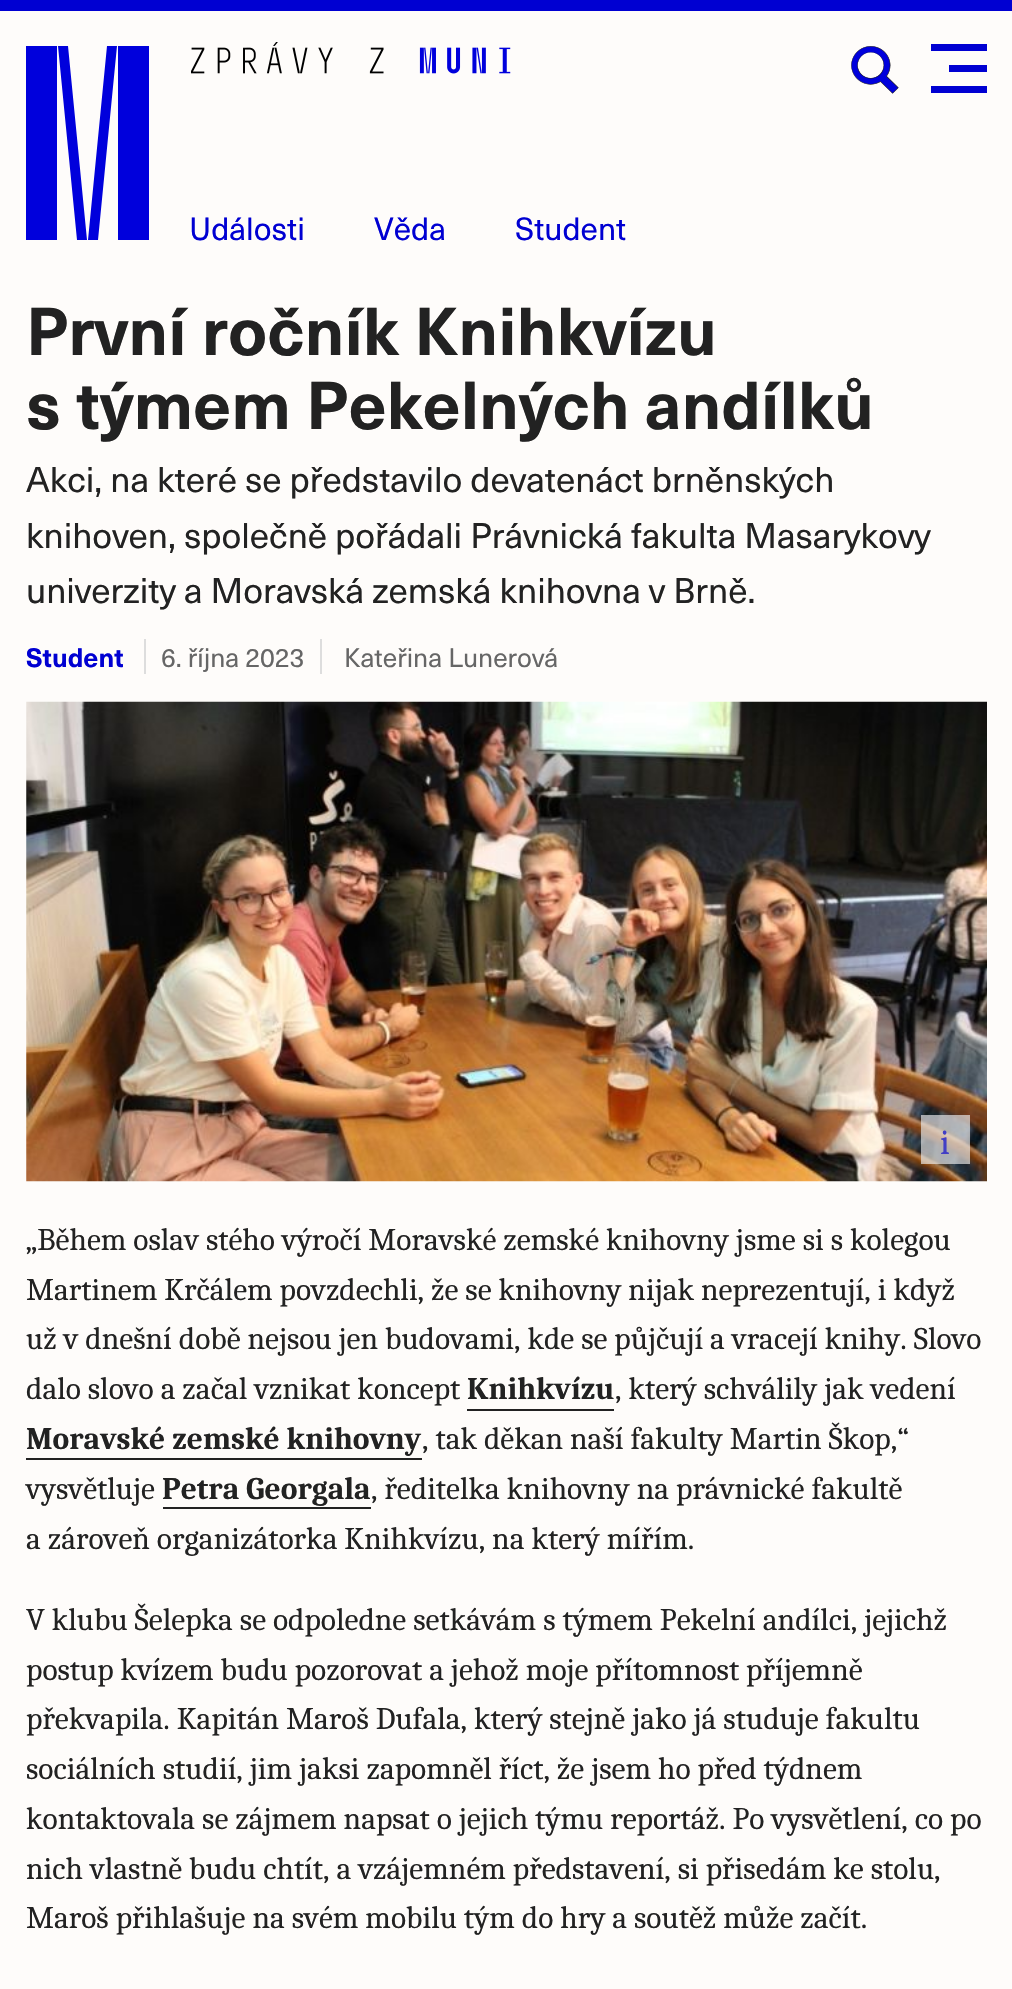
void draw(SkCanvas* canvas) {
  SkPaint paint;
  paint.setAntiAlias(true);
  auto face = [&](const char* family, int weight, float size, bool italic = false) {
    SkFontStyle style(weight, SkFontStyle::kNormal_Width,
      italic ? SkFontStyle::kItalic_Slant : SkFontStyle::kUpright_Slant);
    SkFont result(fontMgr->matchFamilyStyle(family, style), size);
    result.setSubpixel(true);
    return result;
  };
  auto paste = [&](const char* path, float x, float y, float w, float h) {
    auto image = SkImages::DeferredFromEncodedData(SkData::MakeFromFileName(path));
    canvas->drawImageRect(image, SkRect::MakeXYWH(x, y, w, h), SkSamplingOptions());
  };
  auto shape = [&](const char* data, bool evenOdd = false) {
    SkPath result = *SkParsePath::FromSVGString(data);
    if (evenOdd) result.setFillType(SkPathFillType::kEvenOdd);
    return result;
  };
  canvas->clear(0xfffefcfa);
  paint.setColor(0xff0000d2);
  canvas->drawRect(SkRect::MakeXYWH(0, 0, 1012, 11), paint);
  paint.setColor(0xff0000dc);
  canvas->drawPath(shape("M26 46H57V240H26ZM58 46H68L87 240H77ZM107 46H117L98 240H88ZM118 46H149V240H118Z"), paint);
  paste("img/1.png", 191, 42, 320, 32);
  paste("img/2.png", 851, 46, 48, 48);
  {
    const struct { float x, y, w, h; SkColor color; } items[] = {
      {931, 44, 56, 7, 0xff0000d2},
      {949, 65, 38, 7, 0xff0000d2},
      {931, 86, 56, 7, 0xff0000d2},
      {320, 639, 2, 35, 0xffdddddd},
      {144, 639, 2, 35, 0xffdddddd},
    };
    for (auto [x, y, w, h, color] : items) {
      paint.setColor(color);
      canvas->drawRect(SkRect::MakeXYWH(x, y, w, h), paint);
    }
  }
  paste("img/3.png", 26, 701, 961, 481);
  {
    const struct { float x, y, w, h; SkColor color; } items[] = {
      {921, 1115, 49, 49, 0xa6eeeeee},
      {467, 1409, 147, 2, 0xff222222},
      {26, 1458, 396, 2, 0xff222222},
      {163, 1507, 208, 2, 0xff222222},
    };
    for (auto [x, y, w, h, color] : items) {
      paint.setColor(color);
      canvas->drawRect(SkRect::MakeXYWH(x, y, w, h), paint);
    }
  }
  auto f0 = face("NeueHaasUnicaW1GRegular", 400, 31.5f);
  paint.setColor(0xff0000d2);
  {
    const struct { const char* s; float x, y; } items[] = {
      {"Události", 189, 240},
      {"Věda", 374, 240},
      {"Student", 515, 240},
    };
    for (auto [s, x, y] : items) {
      canvas->drawString(s, x, y, f0, paint);
    }
  }
  auto f1 = face("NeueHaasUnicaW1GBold", 700, 66.5f);
  paint.setColor(0xff222222);
  canvas->drawString("První ročník Knihkvízu", 26, 355, f1, paint);
  canvas->drawString("s týmem Pekelných andílků", 26, 429, f1, paint);
  auto f2 = face("NeueHaasUnicaW1GRegular", 400, 35);
  {
    const struct { const char* s; float x, y; } items[] = {
      {"Akci, na které se představilo devatenáct brněnských", 26, 492},
      {"knihoven, společně pořádali Právnická fakulta Masarykovy", 26, 548},
      {"univerzity a Moravská zemská knihovna v Brně.", 26, 603},
    };
    for (auto [s, x, y] : items) {
      canvas->drawString(s, x, y, f2, paint);
    }
  }
  auto f3 = face("NeueHaasUnicaW1GBold", 700, 26.25f);
  paint.setColor(0xff0000d2);
  canvas->drawString("Student", 26, 667, f3, paint);
  auto f4 = face("NeueHaasUnicaW1GRegular", 400, 26.25f);
  paint.setColor(0xff666666);
  canvas->drawString("6. října 2023", 161, 667, f4, paint);
  canvas->drawString("Kateřina Lunerová", 344, 667, f4, paint);
  auto f5 = face("Caladea", 400, 35);
  paint.setColor(0xff423fc5);
  canvas->drawString("i", 940, 1154, f5, paint);
  auto f6 = face("Caladea", 400, 31.5f);
  paint.setColor(0xff222222);
  {
    const struct { const char* s; float x, y; } items[] = {
      {"„Během oslav stého výročí Moravské zemské knihovny jsme si s kolegou", 26, 1250},
      {"Martinem Krčálem povzdechli, že se knihovny nijak neprezentují, i když", 26, 1300},
      {"už v dnešní době nejsou jen budovami, kde se půjčují a vracejí knihy. Slovo", 26, 1349},
      {"dalo slovo a začal vznikat koncept", 26, 1399},
    };
    for (auto [s, x, y] : items) {
      canvas->drawString(s, x, y, f6, paint);
    }
  }
  auto f7 = face("Caladea", 700, 31.5f);
  canvas->drawString("Knihkvízu", 467, 1399, f7, paint);
  canvas->drawString(", který schválily jak vedení", 615, 1399, f6, paint);
  canvas->drawString("Moravské zemské knihovny", 26, 1449, f7, paint);
  canvas->drawString(", tak děkan naší fakulty Martin Škop,“", 422, 1449, f6, paint);
  canvas->drawString("vysvětluje", 26, 1499, f6, paint);
  canvas->drawString("Petra Georgala", 162, 1499, f7, paint);
  {
    const struct { const char* s; float x, y; } items[] = {
      {", ředitelka knihovny na právnické fakultě", 371, 1499},
      {"a zároveň organizátorka Knihkvízu, na který mířím.", 26, 1549},
      {"V klubu Šelepka se odpoledne setkávám s týmem Pekelní andílci, jejichž", 26, 1630},
      {"postup kvízem budu pozorovat a jehož moje přítomnost příjemně", 26, 1680},
      {"překvapila. Kapitán Maroš Dufala, který stejně jako já studuje fakultu", 26, 1729},
      {"sociálních studií, jim jaksi zapomněl říct, že jsem ho před týdnem", 26, 1779},
      {"kontaktovala se zájmem napsat o jejich týmu reportáž. Po vysvětlení, co po", 26, 1829},
      {"nich vlastně budu chtít, a vzájemném představení, si přisedám ke stolu,", 26, 1879},
      {"Maroš přihlašuje na svém mobilu tým do hry a soutěž může začít.", 26, 1928},
    };
    for (auto [s, x, y] : items) {
      canvas->drawString(s, x, y, f6, paint);
    }
  }
}
